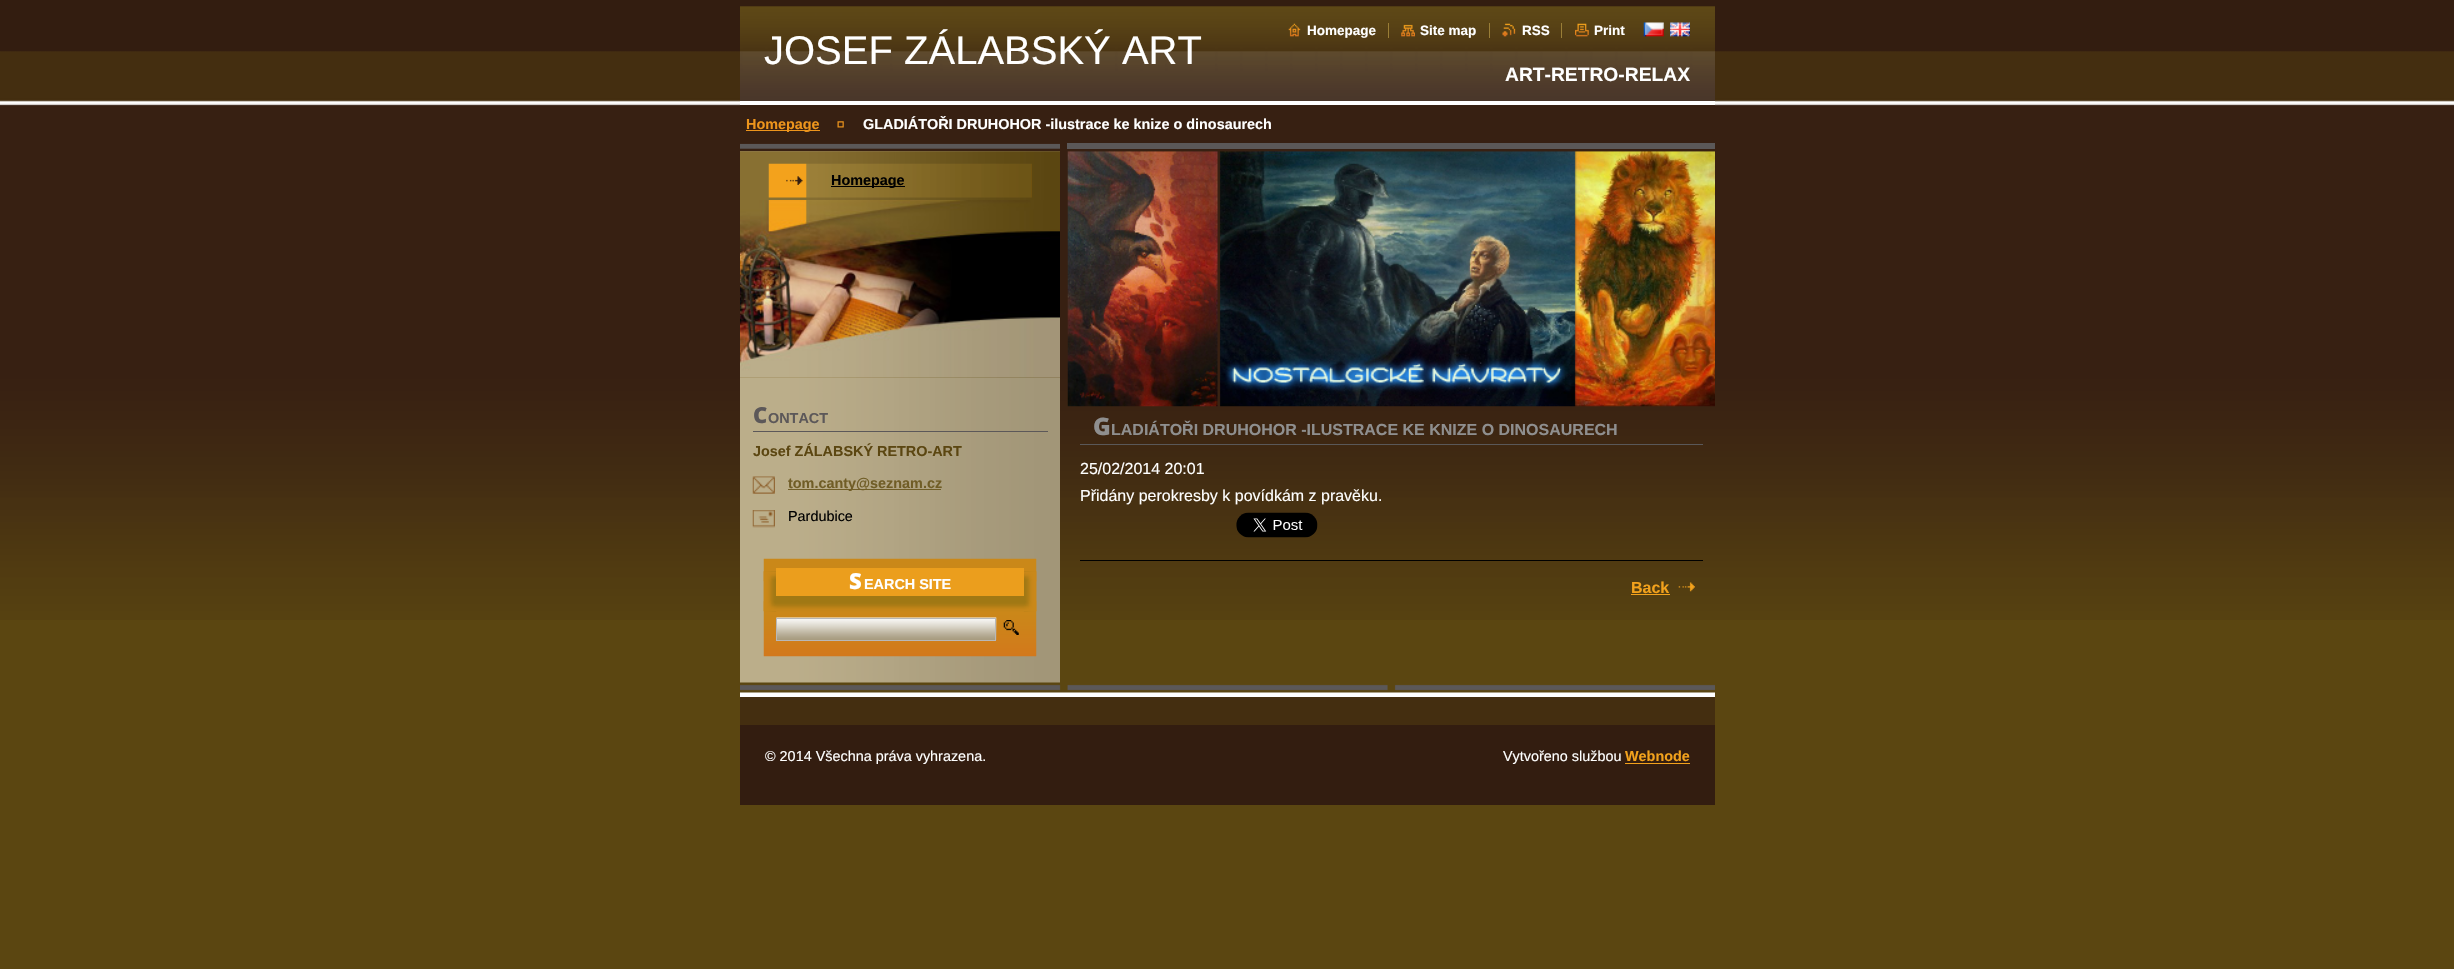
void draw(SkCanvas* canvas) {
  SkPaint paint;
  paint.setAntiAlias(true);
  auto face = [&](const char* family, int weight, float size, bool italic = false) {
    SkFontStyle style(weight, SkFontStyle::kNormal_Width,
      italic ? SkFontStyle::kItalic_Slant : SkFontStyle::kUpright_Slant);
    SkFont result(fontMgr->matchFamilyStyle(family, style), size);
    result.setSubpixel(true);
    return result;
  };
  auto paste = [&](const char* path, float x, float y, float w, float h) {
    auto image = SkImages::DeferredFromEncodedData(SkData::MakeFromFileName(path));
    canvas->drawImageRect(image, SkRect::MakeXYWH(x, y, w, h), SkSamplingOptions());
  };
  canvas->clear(0xff5b4611);
  paste("img/1.png", 0, 0, 2454, 620);
  paste("img/2.png", 740, 151, 320, 532);
  paste("img/3.png", 740, 0, 975, 101);
  paint.setColor(0xffffffff);
  canvas->drawRect(SkRect::MakeXYWH(740, 101, 975, 4), paint);
  paste("img/4.png", 1288, 23, 13, 14);
  paste("img/5.png", 1401, 24, 14, 13);
  paint.setColor(0xff9a7e37);
  canvas->drawRect(SkRect::MakeXYWH(1388, 23, 1, 15), paint);
  paste("img/6.png", 1502, 23, 14, 14);
  canvas->drawRect(SkRect::MakeXYWH(1489, 23, 1, 15), paint);
  paste("img/7.png", 1575, 23, 14, 14);
  canvas->drawRect(SkRect::MakeXYWH(1561, 23, 1, 15), paint);
  paste("img/8.png", 1643, 22, 21, 15);
  paste("img/9.png", 1670, 22, 20, 15);
  paint.setColor(0xff372012);
  canvas->drawRect(SkRect::MakeXYWH(740, 105, 975, 1), paint);
  paint.setColor(0xffed951c);
  canvas->drawRect(SkRect::MakeXYWH(746, 130, 74, 1), paint);
  paste("img/10.png", 837, 121, 7, 7);
  paste("img/11.png", 740, 143, 320, 9);
  paste("img/12.png", 740, 151, 320, 227);
  paste("img/13.png", 768, 163, 264, 35);
  paste("img/14.png", 786, 176, 17, 9);
  paint.setColor(0xff000000);
  canvas->drawRect(SkRect::MakeXYWH(831, 186, 74, 1), paint);
  paste("img/15.png", 740, 200, 320, 178);
  paint.setColor(0xff5c5859);
  canvas->drawRect(SkRect::MakeXYWH(753, 431, 295, 1), paint);
  paste("img/16.png", 752, 476, 23, 18);
  paint.setColor(0xff705d26);
  canvas->drawRect(SkRect::MakeXYWH(788, 489, 153, 1), paint);
  paste("img/17.png", 752, 510, 23, 18);
  paste("img/18.png", 763, 558, 274, 99);
  paint.setColor(0xffa07814);
  canvas->drawRect(SkRect::MakeXYWH(764, 571, 272, 31), paint);
  paste("img/19.png", 763, 571, 274, 41);
  paste("img/20.png", 763, 571, 274, 11);
  paint.setColor(0xffeb9e1d);
  canvas->drawRect(SkRect::MakeXYWH(776, 568, 248, 28), paint);
  paste("img/21.png", 763, 601, 274, 11);
  paste("img/22.png", 776, 617, 221, 23);
  paint.setStroke(true);
  paint.setStrokeWidth(1);
  paint.setColor(0xffb8b8b8);
  canvas->drawRect(SkRect::MakeXYWH(776.5f, 618.5f, 219, 22), paint);
  paste("img/23.png", 1003, 620, 16, 15);
  paint.setStroke(false);
  paint.setColor(0xff5b5858);
  canvas->drawRect(SkRect::MakeXYWH(1067, 143, 648, 6), paint);
  paste("img/24.png", 1067, 151, 648, 256);
  paint.setColor(0xff5a5859);
  canvas->drawRect(SkRect::MakeXYWH(1080, 444, 623, 1), paint);
  paste("img/25.png", 1236, 512, 82, 26);
  paint.setColor(0xff000000);
  canvas->drawRect(SkRect::MakeXYWH(1080, 560, 623, 1), paint);
  paint.setColor(0xfff3a21c);
  canvas->drawRect(SkRect::MakeXYWH(1631, 594, 39, 1), paint);
  paste("img/26.png", 1678, 582, 17, 10);
  paint.setColor(0xff331d10);
  canvas->drawRect(SkRect::MakeXYWH(740, 725, 975, 80), paint);
  paste("img/27.png", 740, 682, 975, 15);
  paint.setColor(0xff442e10);
  canvas->drawRect(SkRect::MakeXYWH(740, 697, 975, 28), paint);
  paint.setColor(0xfff3a21c);
  canvas->drawRect(SkRect::MakeXYWH(1625, 763, 65, 1), paint);
  auto f0 = face("Liberation Sans", 400, 40);
  paint.setColor(0xffffffff);
  canvas->drawString("JOSEF ZÁLABSKÝ ART", 764, 64, f0, paint);
  auto f1 = face("Liberation Sans", 700, 13.5f);
  {
    const struct { const char* s; float x, y; } items[] = {
      {"Homepage", 1307, 35},
      {"Site map", 1420, 35},
      {"RSS", 1522, 35},
      {"Print", 1594, 35},
    };
    for (auto [s, x, y] : items) {
      canvas->drawString(s, x, y, f1, paint);
    }
  }
  auto f2 = face("Liberation Sans", 700, 19.25f);
  canvas->drawString("ART-RETRO-RELAX", 1505, 81, f2, paint);
  auto f3 = face("Liberation Sans", 700, 14.4f);
  paint.setColor(0xffed951c);
  canvas->drawString("Homepage", 746, 129, f3, paint);
  paint.setColor(0xffffffff);
  canvas->drawString("GLADIÁTOŘI DRUHOHOR -ilustrace ke knize o dinosaurech", 863, 129, f3, paint);
  paint.setColor(0xff000000);
  canvas->drawString("Homepage", 831, 185, f3, paint);
  auto f4 = face("Noto Sans", 900, 22);
  paint.setColor(0xff5c5859);
  canvas->drawString("C", 753, 423, f4, paint);
  canvas->drawString("ONTACT", 768, 423, f3, paint);
  paint.setColor(0xff5b4611);
  canvas->drawString("Josef ZÁLABSKÝ RETRO-ART", 753, 456, f3, paint);
  paint.setColor(0xff705d26);
  canvas->drawString("tom.canty@seznam.cz", 788, 488, f3, paint);
  auto f5 = face("Liberation Sans", 400, 14.4f);
  paint.setColor(0xff000000);
  canvas->drawString("Pardubice", 788, 521, f5, paint);
  paint.setColor(0xffffffff);
  canvas->drawString("S", 849, 589, f4, paint);
  canvas->drawString("EARCH SITE", 864, 589, f3, paint);
  auto f6 = face("Noto Sans", 900, 24);
  paint.setColor(0xff8f8f8f);
  canvas->drawString("G", 1093, 435, f6, paint);
  auto f7 = face("Liberation Sans", 700, 16);
  canvas->drawString("LADIÁTOŘI DRUHOHOR -ILUSTRACE KE KNIZE O DINOSAURECH", 1111, 435, f7, paint);
  auto f8 = face("Liberation Sans", 400, 16);
  paint.setColor(0xffffffff);
  canvas->drawString("25/02/2014 20:01", 1080, 474, f8, paint);
  canvas->drawString("Přidány perokresby k povídkám z pravěku.", 1080, 501, f8, paint);
  paint.setColor(0xfff3a21c);
  canvas->drawString("Back", 1631, 593, f7, paint);
  paint.setColor(0xffffffff);
  canvas->drawString("© 2014 Všechna práva vyhrazena.", 765, 761, f5, paint);
  canvas->drawString("Vytvořeno službou", 1503, 761, f5, paint);
  paint.setColor(0xfff3a21c);
  canvas->drawString("Webnode", 1625, 761, f3, paint);
}
